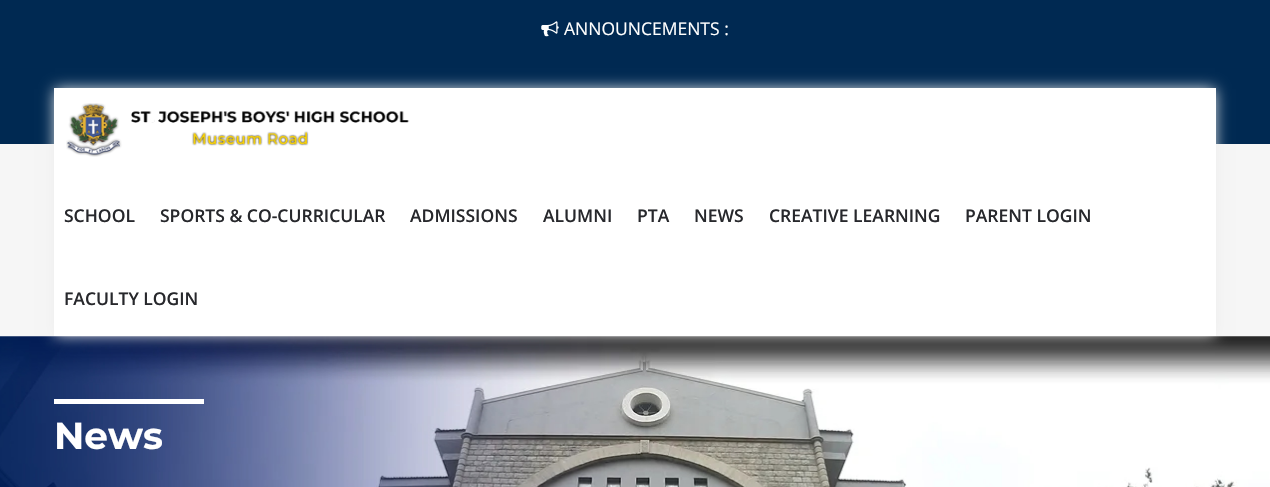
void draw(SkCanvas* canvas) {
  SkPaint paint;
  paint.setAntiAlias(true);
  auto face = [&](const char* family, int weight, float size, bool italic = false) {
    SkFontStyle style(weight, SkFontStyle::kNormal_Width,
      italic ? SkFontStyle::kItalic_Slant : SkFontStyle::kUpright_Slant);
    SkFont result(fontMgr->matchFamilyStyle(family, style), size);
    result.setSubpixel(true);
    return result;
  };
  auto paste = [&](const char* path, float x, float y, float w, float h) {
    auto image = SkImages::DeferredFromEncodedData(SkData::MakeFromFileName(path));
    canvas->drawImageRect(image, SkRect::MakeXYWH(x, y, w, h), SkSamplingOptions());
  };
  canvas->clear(0xffffffff);
  paint.setColor(0xff002952);
  canvas->drawRect(SkRect::MakeXYWH(0, 0, 1270, 144), paint);
  paste("img/1.png", 541, 21, 18, 16);
  paint.setColor(0xfff6f6f6);
  canvas->drawRect(SkRect::MakeXYWH(0, 144, 1270, 192), paint);
  paste("img/3.png", 0, 336, 1270, 151);
  paint.setColor(0xffececec);
  paint.setMaskFilter(SkMaskFilter::MakeBlur(kNormal_SkBlurStyle, 7));
  canvas->drawRect(SkRect::MakeXYWH(55, 89, 1160, 246), paint);
  paint.setMaskFilter(nullptr);
  paint.setColor(0xffffffff);
  canvas->drawRect(SkRect::MakeXYWH(54, 88, 1162, 248), paint);
  paste("img/2.png", 66, 103, 344, 54);
  canvas->drawRect(SkRect::MakeXYWH(54, 399, 150, 5), paint);
  auto f0 = face("Open Sans", 400, 17.5f);
  canvas->drawString("ANNOUNCEMENTS :", 564, 35, f0, paint);
  auto f1 = face("Open Sans", 600, 17.5f);
  paint.setColor(0xff27282c);
  {
    const struct { const char* s; float x, y; } items[] = {
      {"SCHOOL", 64, 222},
      {"SPORTS & CO-CURRICULAR", 160, 222},
      {"ADMISSIONS", 410, 222},
      {"ALUMNI", 543, 222},
      {"PTA", 637, 222},
      {"NEWS", 694, 222},
      {"CREATIVE LEARNING", 769, 222},
      {"PARENT LOGIN", 965, 222},
      {"FACULTY LOGIN", 64, 305},
    };
    for (auto [s, x, y] : items) {
      canvas->drawString(s, x, y, f1, paint);
    }
  }
  auto f2 = face("Montserrat", 700, 37.5f);
  paint.setColor(0xffffffff);
  canvas->drawString("News", 54, 449, f2, paint);
}
